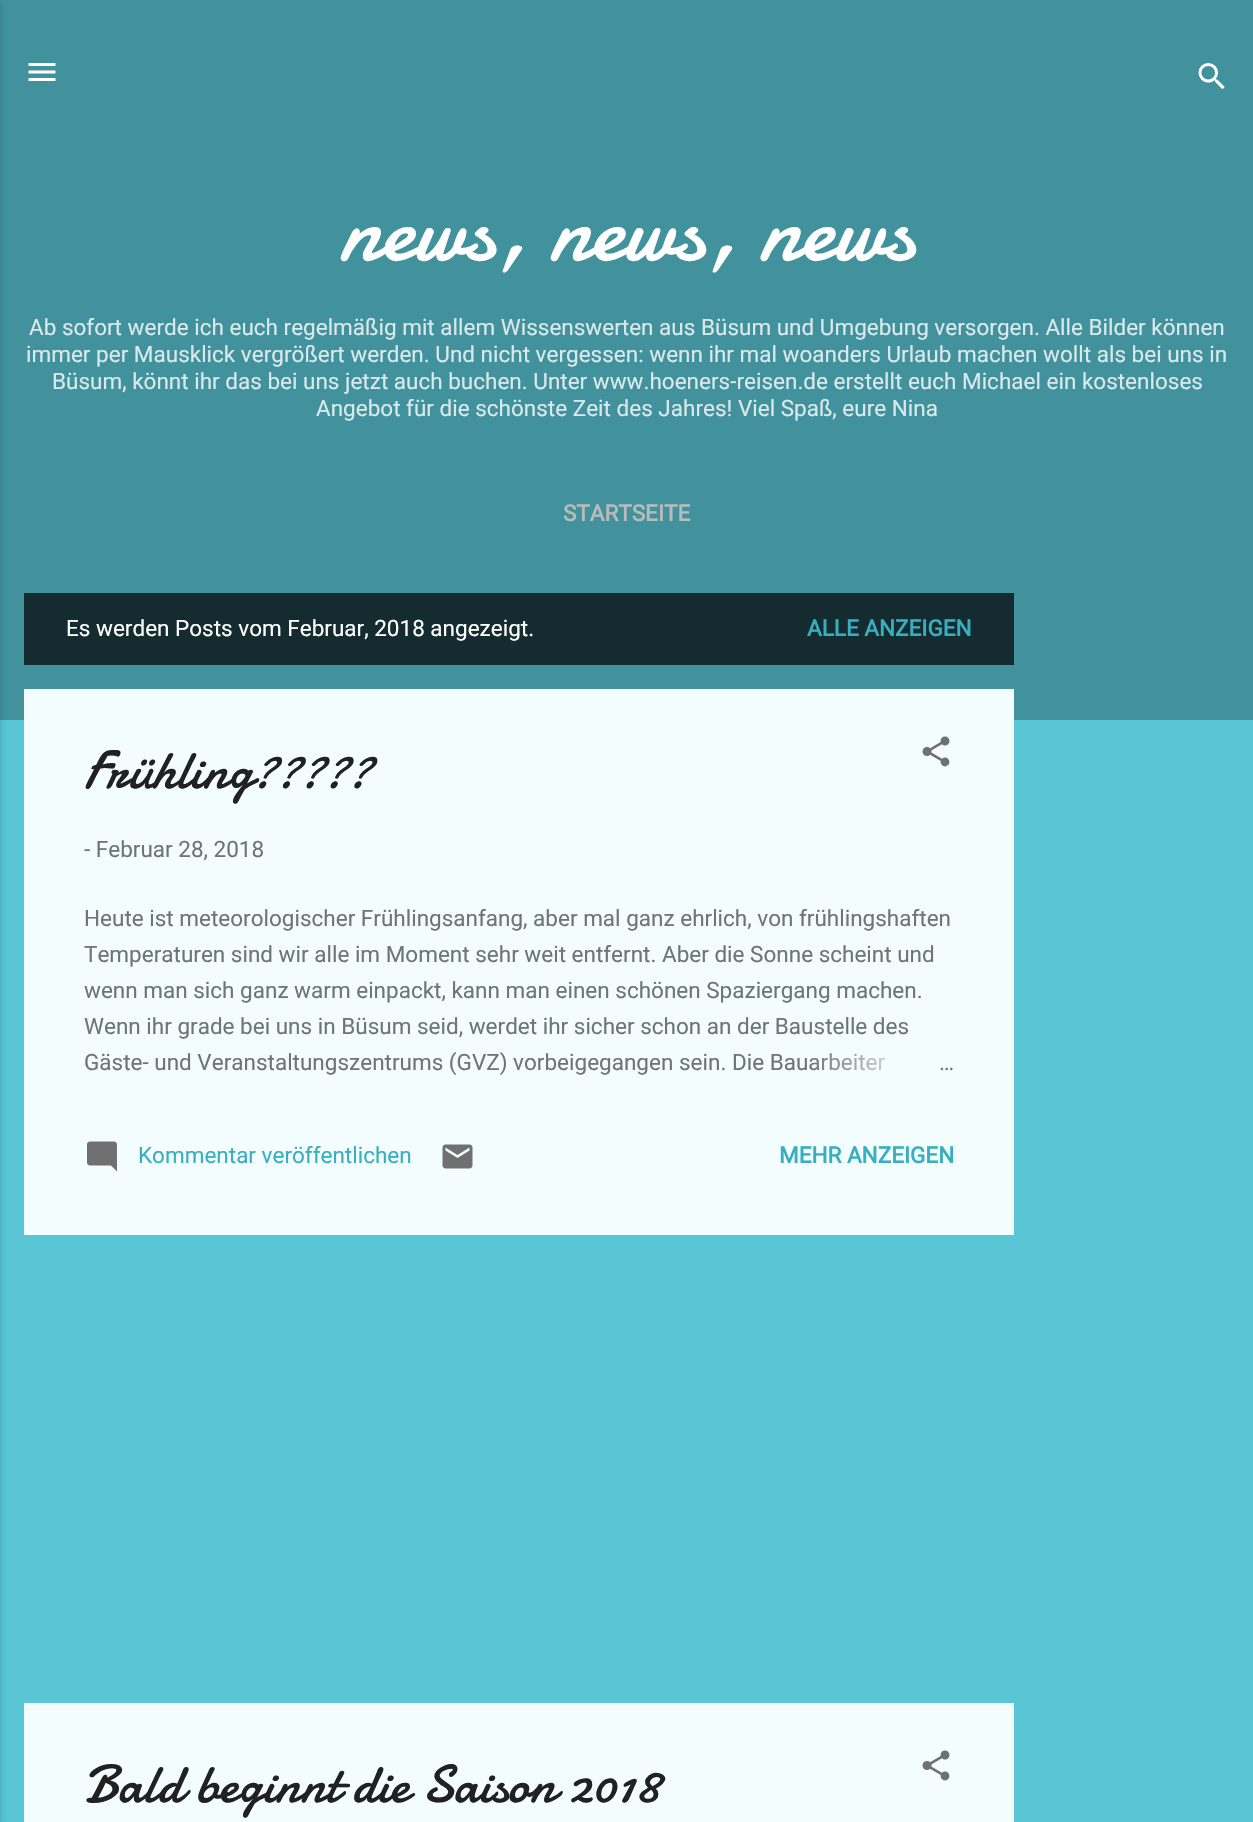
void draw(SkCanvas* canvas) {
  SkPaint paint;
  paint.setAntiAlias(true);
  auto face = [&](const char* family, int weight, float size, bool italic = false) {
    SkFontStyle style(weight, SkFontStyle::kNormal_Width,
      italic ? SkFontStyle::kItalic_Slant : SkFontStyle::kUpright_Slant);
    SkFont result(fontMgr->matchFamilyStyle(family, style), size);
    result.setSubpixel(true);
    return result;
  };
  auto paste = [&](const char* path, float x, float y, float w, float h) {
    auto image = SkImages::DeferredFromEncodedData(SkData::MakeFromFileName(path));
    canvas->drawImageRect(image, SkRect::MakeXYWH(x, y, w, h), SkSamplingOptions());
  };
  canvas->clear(0xff58c6d5);
  paint.setColor(0xff41929d);
  canvas->drawRect(SkRect::MakeXYWH(0, 0, 1253, 720), paint);
  paint.setColor(0x1a000000);
  paint.setMaskFilter(SkMaskFilter::MakeBlur(kNormal_SkBlurStyle, 2));
  canvas->drawRect(SkRect::MakeXYWH(-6, 2, 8, 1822), paint);
  paint.setMaskFilter(nullptr);
  paste("img/1.png", 28, 63, 28, 18);
  paste("img/2.png", 1198, 63, 27, 27);
  paint.setColor(0xff142c2f);
  canvas->drawRect(SkRect::MakeXYWH(24, 593, 990, 72), paint);
  paint.setColor(0xfff3fdfe);
  canvas->drawRect(SkRect::MakeXYWH(24, 689, 990, 546), paint);
  paste("img/3.png", 922, 736, 28, 31);
  paste("img/4.png", 87, 1141, 30, 31);
  paste("img/5.png", 442, 1144, 31, 25);
  canvas->drawRect(SkRect::MakeXYWH(24, 1703, 990, 119), paint);
  paste("img/6.png", 922, 1750, 28, 31);
  auto f0 = face("Damion", 400, 93);
  paint.setColor(0xffffffff);
  canvas->drawString("news, news, news", 340, 260, f0, paint);
  auto f1 = face("Roboto", 400, 22.5f);
  paint.setColor(0xffd9e9eb);
  {
    const struct { const char* s; float x, y; } items[] = {
      {"Ab sofort werde ich euch regelmäßig mit allem Wissenswerten aus Büsum und Umgebung versorgen. Alle Bilder können", 29, 335},
      {"immer per Mausklick vergrößert werden. Und nicht vergessen: wenn ihr mal woanders Urlaub machen wollt als bei uns in", 26, 362},
      {"Büsum, könnt ihr das bei uns jetzt auch buchen. Unter www.hoeners-reisen.de erstellt euch Michael ein kostenloses", 52, 389},
      {"Angebot für die schönste Zeit des Jahres! Viel Spaß, eure Nina", 316, 416},
    };
    for (auto [s, x, y] : items) {
      canvas->drawString(s, x, y, f1, paint);
    }
  }
  auto f2 = face("Roboto", 700, 22.5f);
  paint.setColor(0xffb8babb);
  canvas->drawString("STARTSEITE", 563, 521, f2, paint);
  paint.setColor(0xffffffff);
  canvas->drawString("Es werden Posts vom Februar, 2018 angezeigt.", 66, 636, f1, paint);
  paint.setColor(0xff37afc0);
  canvas->drawString("ALLE ANZEIGEN", 807, 636, f2, paint);
  auto f3 = face("Damion", 400, 54);
  paint.setColor(0xff212121);
  canvas->drawString("Frühling?\077?\077?", 84, 788, f3, paint);
  paint.setColor(0xff707475);
  {
    const struct { const char* s; float x, y; } items[] = {
      {"- Februar 28, 2018", 84, 857},
      {"Heute ist meteorologischer Frühlingsanfang, aber mal ganz ehrlich, von frühlingshaften", 84, 926},
      {"Temperaturen sind wir alle im Moment sehr weit entfernt. Aber die Sonne scheint und", 84, 962},
      {"wenn man sich ganz warm einpackt, kann man einen schönen Spaziergang machen.", 84, 998},
      {"Wenn ihr grade bei uns in Büsum seid, werdet ihr sicher schon an der Baustelle des", 84, 1034},
      {"Gäste- und Veranstaltungszentrums (GVZ) vorbeigegangen sein. Die Bauarbeiter", 84, 1070},
    };
    for (auto [s, x, y] : items) {
      canvas->drawString(s, x, y, f1, paint);
    }
  }
  {
    const SkColor colors[] = {0xfff3fdfe, 0xfff3fdfe, 0x00f3fdfe};
    const float stops[] = {0, 0.2f, 1};
    const SkPoint ends[] = {{954, 1064}, {810, 1064}};
    paint.setShader(SkGradientShader::MakeLinear(ends, colors, stops, 3, SkTileMode::kClamp));
    paint.setAlpha(255);
  }
  canvas->drawRect(SkRect::MakeXYWH(812, 1053, 73, 18), paint);
  paint.setShader(nullptr);
  paint.setColor(0xff707475);
  canvas->drawString("…", 939, 1070, f1, paint);
  paint.setColor(0xff37afc0);
  canvas->drawString("Kommentar veröffentlichen", 138, 1163, f1, paint);
  canvas->drawString("MEHR ANZEIGEN", 779, 1163, f2, paint);
  paint.setColor(0xff212121);
  canvas->drawString("Bald beginnt die Saison 2018", 84, 1802, f3, paint);
}
